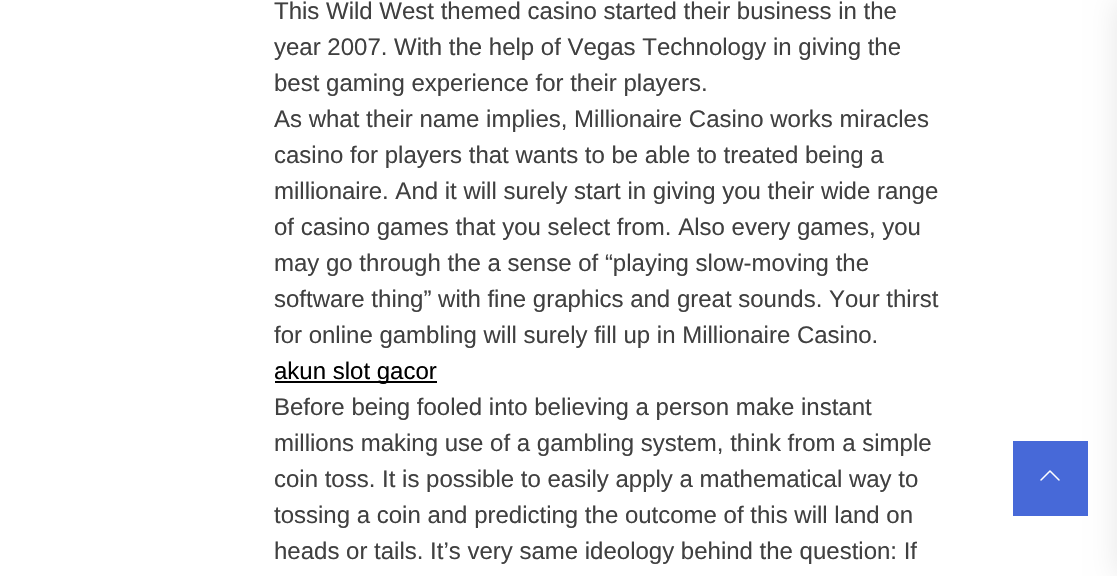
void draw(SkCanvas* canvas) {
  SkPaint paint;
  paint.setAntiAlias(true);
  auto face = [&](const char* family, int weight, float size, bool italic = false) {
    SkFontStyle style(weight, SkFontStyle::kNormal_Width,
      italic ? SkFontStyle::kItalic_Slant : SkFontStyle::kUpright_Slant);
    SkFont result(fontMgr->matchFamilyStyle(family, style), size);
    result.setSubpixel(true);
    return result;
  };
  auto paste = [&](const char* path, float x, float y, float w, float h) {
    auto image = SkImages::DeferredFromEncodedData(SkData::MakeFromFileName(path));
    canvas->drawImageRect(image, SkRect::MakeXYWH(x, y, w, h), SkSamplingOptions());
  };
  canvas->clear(0xffffffff);
  paint.setColor(0xff000000);
  canvas->drawRect(SkRect::MakeXYWH(275, 381, 162, 2), paint);
  paint.setColor(0x1a000000);
  paint.setMaskFilter(SkMaskFilter::MakeBlur(kNormal_SkBlurStyle, 15));
  canvas->drawRect(SkRect::MakeXYWH(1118, 0, 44, 576), paint);
  paint.setMaskFilter(nullptr);
  paint.setColor(0xff4769d8);
  canvas->drawRect(SkRect::MakeXYWH(1013, 441, 75, 75), paint);
  paste("img/1.png", 1040, 470, 20, 11);
  auto f0 = face("Liberation Sans", 400, 24);
  paint.setColor(0xff404040);
  {
    const struct { const char* s; float x, y; } items[] = {
      {"This Wild West themed casino started their business in the", 274, 19},
      {"year 2007. With the help of Vegas Technology in giving the", 274, 55},
      {"best gaming experience for their players.", 274, 91},
      {"As what their name implies, Millionaire Casino works miracles", 274, 127},
      {"casino for players that wants to be able to treated being a", 274, 163},
      {"millionaire. And it will surely start in giving you their wide range", 274, 199},
      {"of casino games that you select from. Also every games, you", 274, 235},
      {"may go through the a sense of “playing slow-moving the", 274, 271},
      {"software thing” with fine graphics and great sounds. Your thirst", 274, 307},
      {"for online gambling will surely fill up in Millionaire Casino.", 274, 343},
    };
    for (auto [s, x, y] : items) {
      canvas->drawString(s, x, y, f0, paint);
    }
  }
  paint.setColor(0xff000000);
  canvas->drawString("akun slot gacor", 274, 379, f0, paint);
  paint.setColor(0xff404040);
  {
    const struct { const char* s; float x, y; } items[] = {
      {"Before being fooled into believing a person make instant", 274, 415},
      {"millions making use of a gambling system, think from a simple", 274, 451},
      {"coin toss. It is possible to easily apply a mathematical way to", 274, 487},
      {"tossing a coin and predicting the outcome of this will land on", 274, 523},
      {"heads or tails. It’s very same ideology behind the question: If", 274, 559},
    };
    for (auto [s, x, y] : items) {
      canvas->drawString(s, x, y, f0, paint);
    }
  }
}
